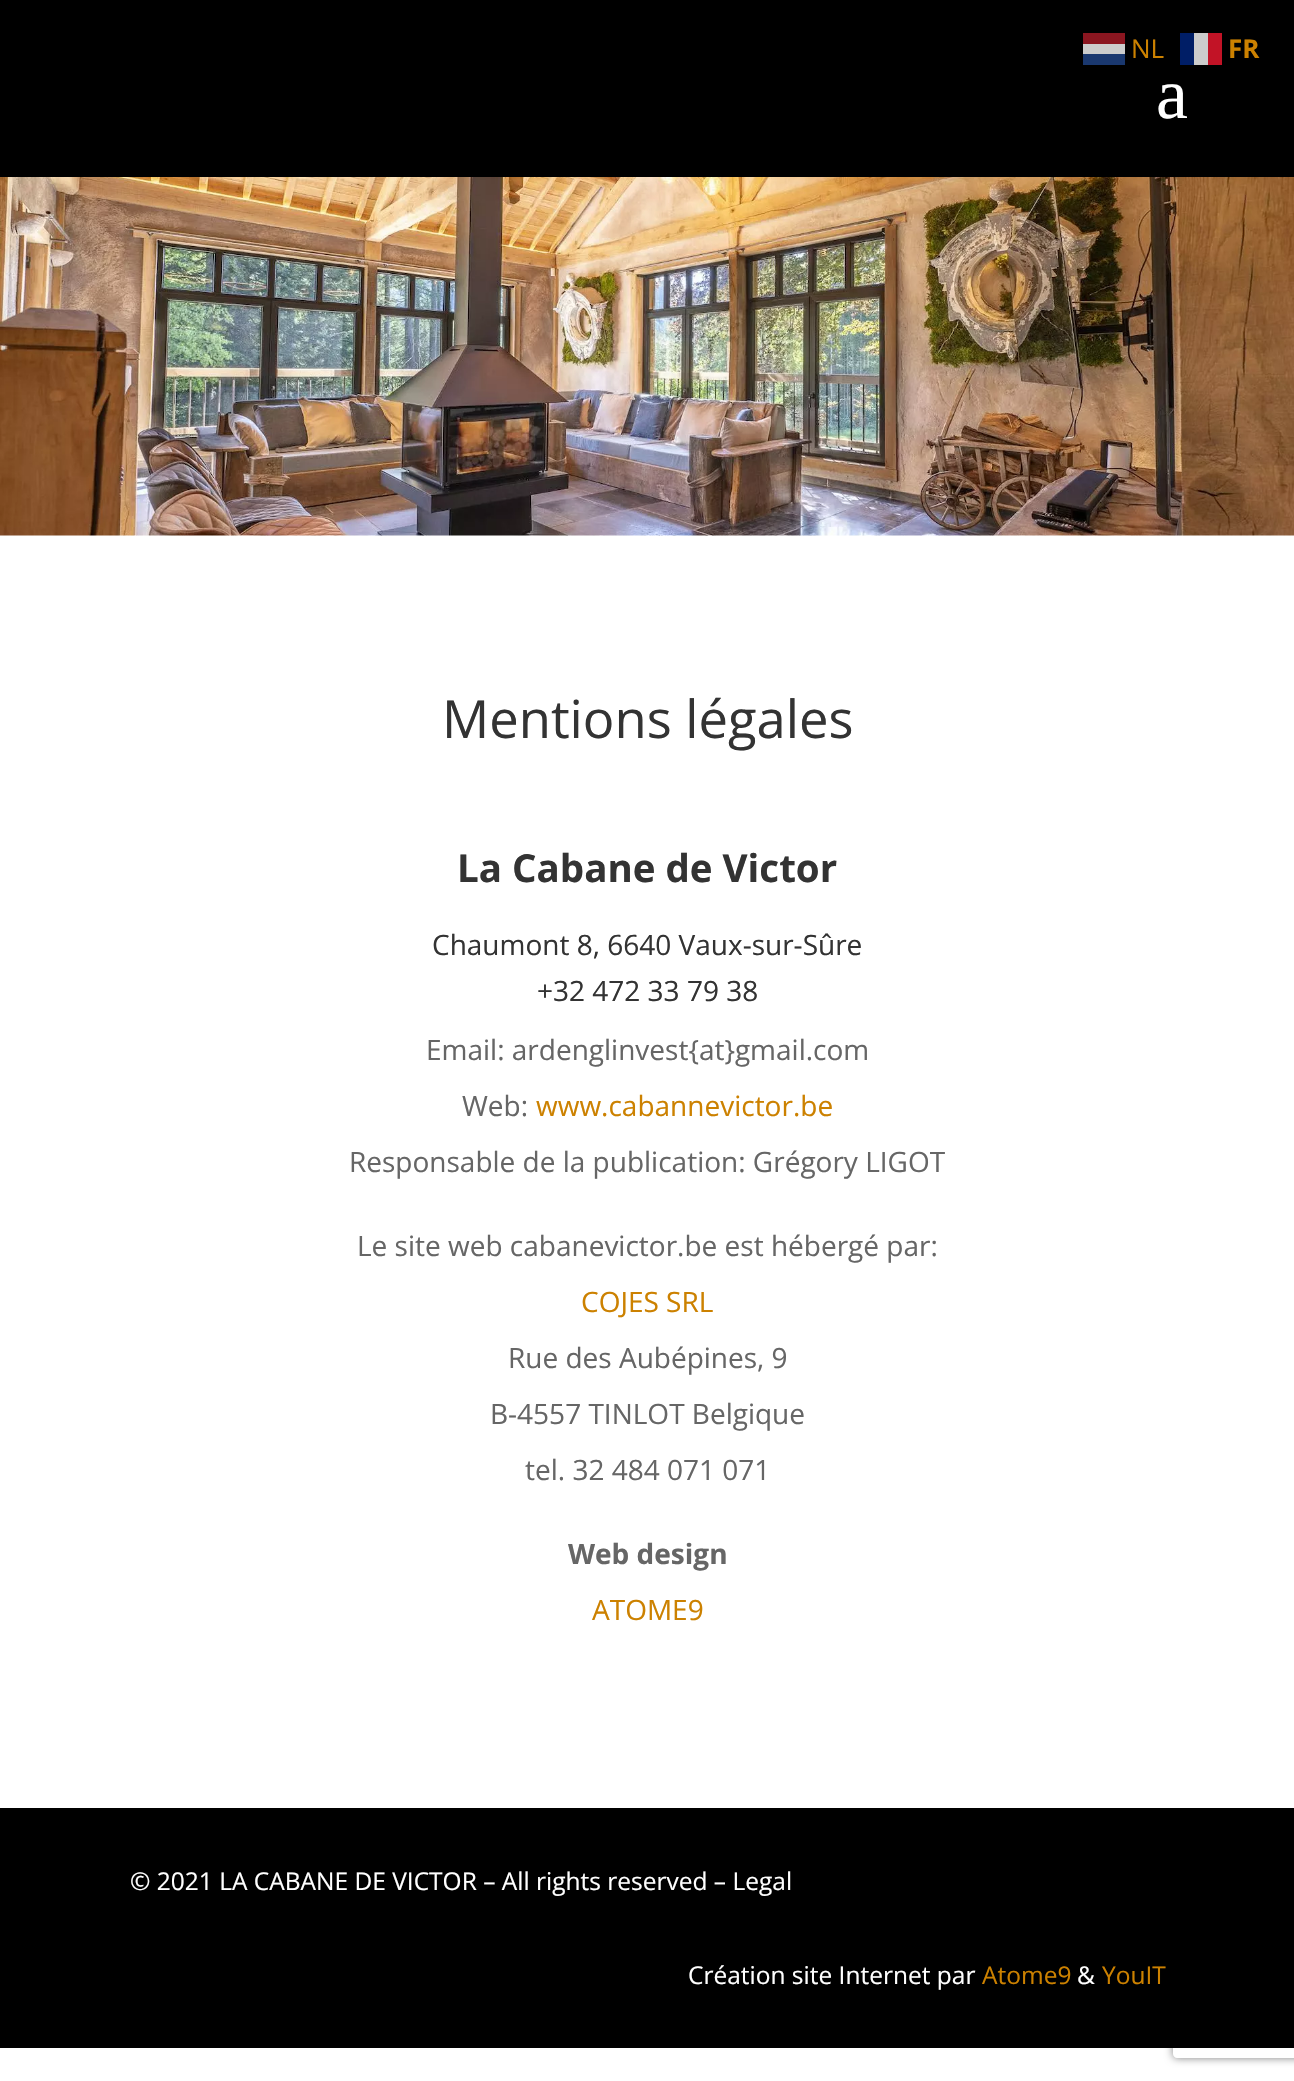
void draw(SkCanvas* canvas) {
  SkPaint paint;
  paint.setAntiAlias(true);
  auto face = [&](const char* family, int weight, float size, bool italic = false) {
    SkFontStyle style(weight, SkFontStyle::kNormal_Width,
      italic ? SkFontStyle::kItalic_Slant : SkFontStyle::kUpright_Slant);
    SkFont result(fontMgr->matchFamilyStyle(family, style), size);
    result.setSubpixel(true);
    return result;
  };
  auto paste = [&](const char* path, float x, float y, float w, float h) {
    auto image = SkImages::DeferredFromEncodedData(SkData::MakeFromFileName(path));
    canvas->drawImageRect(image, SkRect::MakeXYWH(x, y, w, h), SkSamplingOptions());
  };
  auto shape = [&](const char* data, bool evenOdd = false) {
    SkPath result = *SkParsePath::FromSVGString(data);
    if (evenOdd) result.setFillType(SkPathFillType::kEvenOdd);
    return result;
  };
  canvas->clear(0xffffffff);
  {
    const struct { float x, y, w, h; SkColor color; } items[] = {
      {0, 0, 1294, 177, 0xff000000},
      {1083, 44, 42, 10, 0xffcccccc},
      {1083, 54, 42, 11, 0xff1a386f},
      {1083, 33, 42, 11, 0xff8b1620},
      {1194, 33, 14, 32, 0xffcccccc},
      {1180, 33, 14, 32, 0xff001e66},
      {1208, 33, 14, 32, 0xffc21326},
    };
    for (auto [x, y, w, h, color] : items) {
      paint.setColor(color);
      canvas->drawRect(SkRect::MakeXYWH(x, y, w, h), paint);
    }
  }
  paste("img/1.png", 0, 177, 1294, 359);
  canvas->save();
  canvas->clipPath(shape("M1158 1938H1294V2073H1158ZM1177 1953H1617C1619 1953 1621 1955 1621 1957V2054C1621 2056 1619 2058 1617 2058H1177C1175 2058 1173 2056 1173 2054V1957C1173 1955 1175 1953 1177 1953Z", true), true);
  paint.setColor(0xff808080);
  paint.setMaskFilter(SkMaskFilter::MakeBlur(kNormal_SkBlurStyle, 4.5f));
  canvas->drawRoundRect(SkRect::MakeXYWH(1173, 1953, 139, 105), 4, 4, paint);
  paint.setMaskFilter(nullptr);
  canvas->restore();
  paint.setColor(0xff000000);
  canvas->drawRect(SkRect::MakeXYWH(0, 1808, 1294, 240), paint);
  auto f0 = face("Open Sans", 400, 26);
  paint.setColor(0xffcc8100);
  canvas->drawString("NL", 1131, 58, f0, paint);
  auto f1 = face("Open Sans", 700, 26);
  canvas->drawString("FR", 1228, 58, f1, paint);
  auto f2 = face("Liberation Serif", 400, 72);
  paint.setColor(0xffffffff);
  canvas->drawString("a", 1156, 118, f2, paint);
  auto f3 = face("Open Sans", 400, 52.5f);
  paint.setColor(0xff333333);
  canvas->drawString("Mentions légales", 442, 738, f3, paint);
  auto f4 = face("Open Sans", 700, 38.5f);
  canvas->drawString("La Cabane de Victor", 457, 882, f4, paint);
  auto f5 = face("Open Sans", 400, 28);
  canvas->drawString("Chaumont 8, 6640 Vaux-sur-Sûre", 432, 955, f5, paint);
  canvas->drawString("+32 472 33 79 38", 537, 1001, f5, paint);
  paint.setColor(0xff666666);
  canvas->drawString("Email: ardenglinvest{at}gmail.com", 426, 1060, f5, paint);
  canvas->drawString("Web:", 462, 1116, f5, paint);
  paint.setColor(0xffcc8100);
  canvas->drawString("www.cabannevictor.be", 536, 1116, f5, paint);
  paint.setColor(0xff666666);
  canvas->drawString("Responsable de la publication: Grégory LIGOT", 349, 1172, f5, paint);
  canvas->drawString("Le site web cabanevictor.be est hébergé par:", 357, 1256, f5, paint);
  paint.setColor(0xffcc8100);
  canvas->drawString("COJES SRL", 581, 1312, f5, paint);
  paint.setColor(0xff666666);
  {
    const struct { const char* s; float x, y; } items[] = {
      {"Rue des Aubépines, 9", 508, 1368},
      {"B-4557 TINLOT Belgique", 490, 1424},
      {"tel. 32 484 071 071", 525, 1480},
    };
    for (auto [s, x, y] : items) {
      canvas->drawString(s, x, y, f5, paint);
    }
  }
  auto f6 = face("Open Sans", 700, 28);
  canvas->drawString("Web design", 568, 1564, f6, paint);
  paint.setColor(0xffcc8100);
  canvas->drawString("ATOME9", 592, 1620, f5, paint);
  auto f7 = face("Open Sans", 400, 24.5f);
  paint.setColor(0xffffffff);
  canvas->drawString("© 2021 LA CABANE DE VICTOR – All rights reserved – Legal", 130, 1890, f7, paint);
  canvas->drawString("Création site Internet par", 688, 1984, f7, paint);
  paint.setColor(0xffcc8100);
  canvas->drawString("Atome9", 982, 1984, f7, paint);
  paint.setColor(0xffffffff);
  canvas->drawString("&", 1077, 1984, f7, paint);
  paint.setColor(0xffcc8100);
  canvas->drawString("YouIT", 1102, 1984, f7, paint);
}
